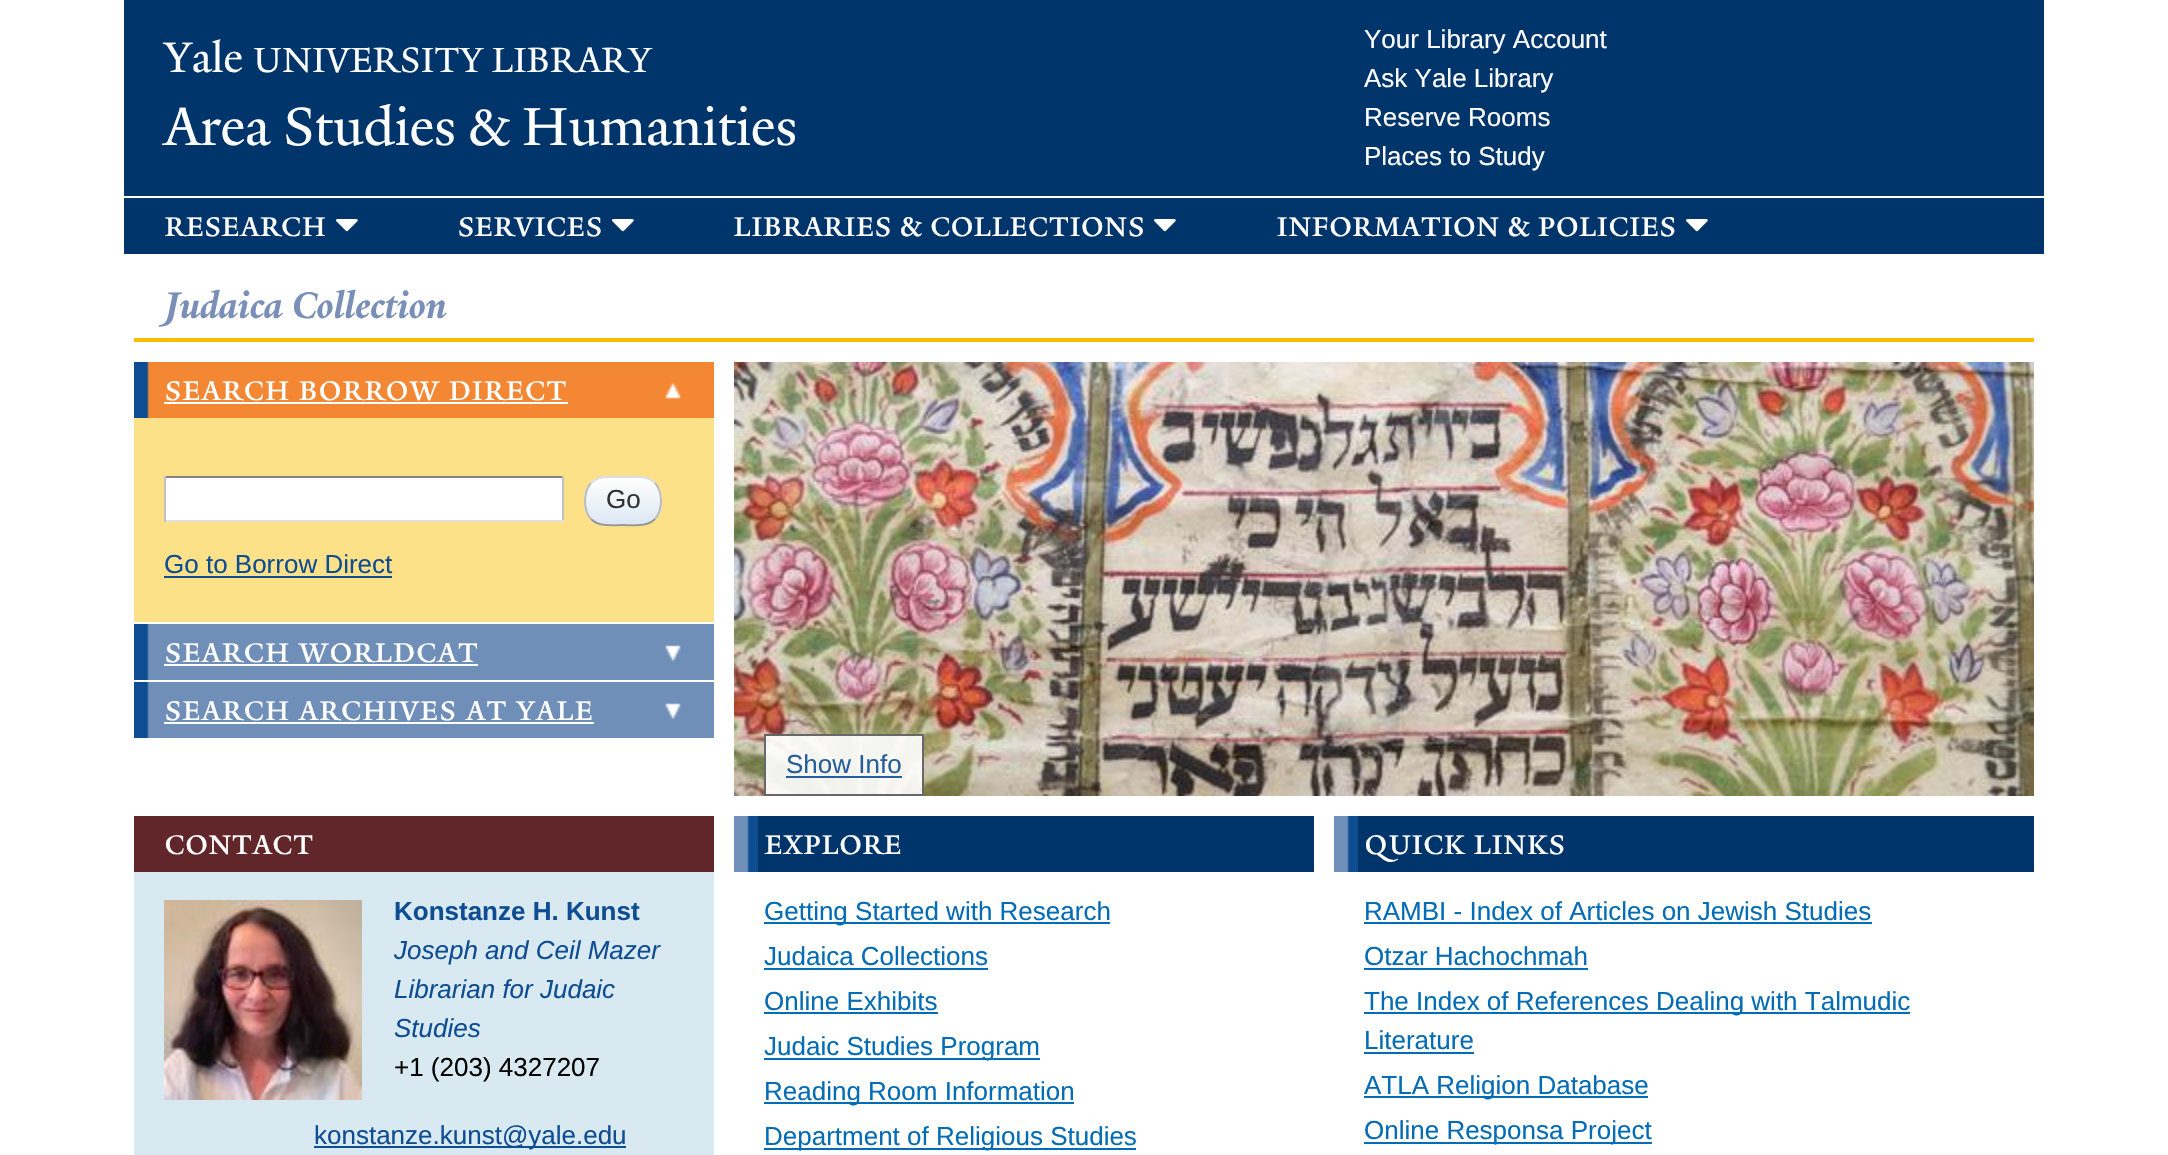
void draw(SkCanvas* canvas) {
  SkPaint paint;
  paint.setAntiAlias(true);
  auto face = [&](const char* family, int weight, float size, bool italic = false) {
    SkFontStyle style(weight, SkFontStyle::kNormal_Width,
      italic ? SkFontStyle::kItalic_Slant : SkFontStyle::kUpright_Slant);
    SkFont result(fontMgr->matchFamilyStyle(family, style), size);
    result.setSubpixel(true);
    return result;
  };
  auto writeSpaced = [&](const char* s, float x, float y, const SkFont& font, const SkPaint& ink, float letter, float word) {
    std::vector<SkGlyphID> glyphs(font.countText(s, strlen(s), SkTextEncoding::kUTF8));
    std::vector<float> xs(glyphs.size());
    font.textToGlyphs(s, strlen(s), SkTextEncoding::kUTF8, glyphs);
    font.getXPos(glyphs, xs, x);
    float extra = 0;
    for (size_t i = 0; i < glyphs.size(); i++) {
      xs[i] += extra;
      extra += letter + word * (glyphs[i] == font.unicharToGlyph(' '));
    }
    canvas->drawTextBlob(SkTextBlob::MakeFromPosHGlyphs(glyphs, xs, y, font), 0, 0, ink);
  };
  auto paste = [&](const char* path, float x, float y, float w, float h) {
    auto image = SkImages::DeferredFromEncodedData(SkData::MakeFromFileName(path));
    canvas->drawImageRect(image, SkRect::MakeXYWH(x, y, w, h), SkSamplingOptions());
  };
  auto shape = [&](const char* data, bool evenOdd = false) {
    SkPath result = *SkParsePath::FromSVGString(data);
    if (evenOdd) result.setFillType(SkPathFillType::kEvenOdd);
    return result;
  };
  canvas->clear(0xffffffff);
  paint.setColor(0xff00356b);
  canvas->drawRect(SkRect::MakeXYWH(124, 0, 1920, 196), paint);
  canvas->drawRect(SkRect::MakeXYWH(124, 198, 1920, 56), paint);
  paste("img/1.png", 336, 219, 22, 13);
  paste("img/1.png", 612, 219, 22, 13);
  paste("img/1.png", 1154, 219, 22, 13);
  paste("img/1.png", 1686, 219, 22, 13);
  {
    const struct { float x, y, w, h; SkColor color; } items[] = {
      {134, 338, 1900, 4, 0xfff9be00},
      {134, 418, 580, 204, 0xfffce188},
      {149, 362, 565, 56, 0xfff48734},
    };
    for (auto [x, y, w, h, color] : items) {
      paint.setColor(color);
      canvas->drawRect(SkRect::MakeXYWH(x, y, w, h), paint);
    }
  }
  paste("img/2.png", 134, 362, 15, 56);
  paste("img/3.png", 665, 382, 16, 17);
  {
    const struct { float x, y, w, h; SkColor color; } items[] = {
      {164, 402, 404, 2, 0xffffffff},
      {166, 478, 396, 42, 0xffffffff},
      {164, 476, 400, 2, 0xff848484},
      {562, 476, 2, 46, 0xffc1c1c1},
      {164, 520, 400, 2, 0xffe1e1e1},
      {164, 476, 2, 46, 0xffc1c1c1},
    };
    for (auto [x, y, w, h, color] : items) {
      paint.setColor(color);
      canvas->drawRect(SkRect::MakeXYWH(x, y, w, h), paint);
    }
  }
  canvas->save();
  canvas->clipPath(shape("M606 476H640C652 476 662 486 662 498V504C662 516 652 526 640 526H606C594 526 584 516 584 504V498C584 486 594 476 606 476Z"), true);
  {
    const SkColor colors[] = {0xffffffff, 0xffdde8f4};
    const float stops[] = {0, 1};
    const SkPoint ends[] = {{623, 432}, {623, 478}};
    paint.setShader(SkGradientShader::MakeLinear(ends, colors, stops, 2, SkTileMode::kClamp));
    paint.setAlpha(255);
  }
  canvas->drawRect(SkRect::MakeXYWH(597, 476, 52, 2), paint);
  {
    const SkColor colors[] = {0xffffffff, 0xffdde8f4};
    const float stops[] = {0, 1};
    const SkPoint ends[] = {{623, 478}, {623, 524}};
    paint.setShader(SkGradientShader::MakeLinear(ends, colors, stops, 2, SkTileMode::kClamp));
    paint.setAlpha(255);
  }
  canvas->drawRect(SkRect::MakeXYWH(584, 478, 78, 46), paint);
  {
    const SkColor colors[] = {0xffffffff, 0xffdde8f4};
    const float stops[] = {0, 1};
    const SkPoint ends[] = {{623, 524}, {623, 570}};
    paint.setShader(SkGradientShader::MakeLinear(ends, colors, stops, 2, SkTileMode::kClamp));
    paint.setAlpha(255);
  }
  canvas->drawRect(SkRect::MakeXYWH(597, 524, 52, 2), paint);
  canvas->restore();
  paint.setStroke(true);
  paint.setStrokeWidth(2);
  paint.setShader(nullptr);
  paint.setColor(0xffdddddd);
  canvas->drawPath(shape("M591 483C599.5 474.5 612 477 623 477C634 477 646.5 474.5 655 483"), paint);
  paint.setColor(0xffbbbbbb);
  canvas->drawPath(shape("M655 483C660 488.5 661 494 661 501C661 508 660 513.5 655 519"), paint);
  paint.setColor(0xff999999);
  canvas->drawPath(shape("M655 519C646.5 527.5 634 525 623 525C612 525 599.5 527.5 591 519"), paint);
  paint.setColor(0xffbbbbbb);
  canvas->drawPath(shape("M591 519C586 513.5 585 508 585 501C585 494 586 488.5 591 483"), paint);
  paint.setStroke(false);
  paint.setColor(0xff0f4d92);
  canvas->drawRect(SkRect::MakeXYWH(164, 576, 228, 2), paint);
  paint.setColor(0xff708fb8);
  canvas->drawRect(SkRect::MakeXYWH(149, 624, 565, 56), paint);
  paste("img/4.png", 134, 624, 15, 56);
  paste("img/5.png", 665, 645, 16, 17);
  paint.setColor(0xffffffff);
  canvas->drawRect(SkRect::MakeXYWH(164, 664, 314, 2), paint);
  paint.setColor(0xff708fb8);
  canvas->drawRect(SkRect::MakeXYWH(149, 682, 565, 56), paint);
  paste("img/4.png", 134, 682, 15, 56);
  paste("img/5.png", 665, 703, 16, 17);
  paint.setColor(0xffffffff);
  canvas->drawRect(SkRect::MakeXYWH(164, 722, 430, 2), paint);
  paste("img/6.png", 734, 362, 1300, 434);
  paint.setColor(0xe6ffffff);
  canvas->drawRect(SkRect::MakeXYWH(764, 734, 160, 62), paint);
  paint.setStroke(true);
  paint.setColor(0xe6585858);
  canvas->drawRect(SkRect::MakeXYWH(765, 735, 158, 60), paint);
  paint.setStroke(false);
  {
    const struct { float x, y, w, h; SkColor color; } items[] = {
      {786, 776, 116, 2, 0xe60f4d92},
      {134, 872, 580, 283, 0xffd9e9f2},
      {134, 816, 580, 56, 0xff61262a},
    };
    for (auto [x, y, w, h, color] : items) {
      paint.setColor(color);
      canvas->drawRect(SkRect::MakeXYWH(x, y, w, h), paint);
    }
  }
  paste("img/7.png", 164, 900, 198, 200);
  paint.setColor(0xff0f4d92);
  canvas->drawRect(SkRect::MakeXYWH(314, 1146, 312, 2), paint);
  paint.setColor(0xff00356b);
  canvas->drawRect(SkRect::MakeXYWH(758, 816, 556, 56), paint);
  paste("img/8.png", 734, 816, 24, 56);
  {
    const struct { float x, y, w, h; SkColor color; } items[] = {
      {764, 922, 346, 2, 0xff026cb6},
      {764, 968, 224, 2, 0xff026cb6},
      {764, 1012, 174, 2, 0xff026cb6},
      {764, 1058, 276, 2, 0xff026cb6},
      {764, 1102, 310, 2, 0xff026cb6},
      {764, 1148, 372, 2, 0xff026cb6},
      {1358, 816, 676, 56, 0xff00356b},
    };
    for (auto [x, y, w, h, color] : items) {
      paint.setColor(color);
      canvas->drawRect(SkRect::MakeXYWH(x, y, w, h), paint);
    }
  }
  paste("img/8.png", 1334, 816, 24, 56);
  {
    const struct { float x, y, w, h; SkColor color; } items[] = {
      {1364, 922, 508, 2, 0xff026cb6},
      {1364, 968, 224, 2, 0xff026cb6},
      {1364, 1012, 546, 2, 0xff026cb6},
      {1364, 1052, 110, 2, 0xff026cb6},
      {1364, 1096, 284, 2, 0xff026cb6},
      {1364, 1142, 288, 2, 0xff026cb6},
    };
    for (auto [x, y, w, h, color] : items) {
      paint.setColor(color);
      canvas->drawRect(SkRect::MakeXYWH(x, y, w, h), paint);
    }
  }
  auto f0 = face("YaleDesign", 400, 46);
  paint.setColor(0xffffffff);
  canvas->drawString("Yale", 164, 72, f0, paint);
  auto f1 = face("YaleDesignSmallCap", 500, 38);
  canvas->drawString("UNIVERSITY LIBRARY", 253, 72, f1, paint);
  auto f2 = face("YaleDesign", 400, 58);
  canvas->drawString("Area Studies & Humanities", 164, 145, f2, paint);
  auto f3 = face("Liberation Sans", 400, 26);
  {
    const struct { const char* s; float x, y; } items[] = {
      {"Your Library Account", 1364, 48},
      {"Ask Yale Library", 1364, 87},
      {"Reserve Rooms", 1364, 126},
      {"Places to Study", 1364, 165},
    };
    for (auto [s, x, y] : items) {
      canvas->drawString(s, x, y, f3, paint);
    }
  }
  {
    const struct { const char* s; float x, y; } items[] = {
      {"research", 164, 236},
      {"services", 457, 236},
      {"libraries & collections", 733, 236},
      {"information & policies", 1276, 236},
    };
    for (auto [s, x, y] : items) {
      writeSpaced(s, x, y, f1, paint, -0.6f, 0);
    }
  }
  auto f4 = face("YaleDesign", 700, 40, true);
  paint.setColor(0xff798fb8);
  canvas->drawString("Judaica Collection", 164, 318, f4, paint);
  paint.setColor(0xffffffff);
  canvas->drawString("search borrow direct", 164, 400, f1, paint);
  paint.setColor(0xff333333);
  canvas->drawString("Go", 606, 508, f3, paint);
  paint.setColor(0xff0f4d92);
  canvas->drawString("Go to Borrow Direct", 164, 573, f3, paint);
  paint.setColor(0xffffffff);
  canvas->drawString("search worldcat", 164, 662, f1, paint);
  canvas->drawString("search archives at yale", 164, 720, f1, paint);
  paint.setColor(0xff265e9b);
  canvas->drawString("Show Info", 786, 773, f3, paint);
  paint.setColor(0xffffffff);
  writeSpaced("contact", 164, 854, f1, paint, -0.6f, 0);
  auto f5 = face("Liberation Sans", 700, 26);
  paint.setColor(0xff0f4d92);
  canvas->drawString("Konstanze H. Kunst", 394, 920, f5, paint);
  auto f6 = face("Liberation Sans", 400, 26, true);
  {
    const struct { const char* s; float x, y; } items[] = {
      {"Joseph and Ceil Mazer", 394, 959},
      {"Librarian for Judaic", 394, 998},
      {"Studies", 394, 1037},
    };
    for (auto [s, x, y] : items) {
      canvas->drawString(s, x, y, f6, paint);
    }
  }
  paint.setColor(0xff000000);
  canvas->drawString("+1 (203) 4327207", 394, 1076, f3, paint);
  paint.setColor(0xff0f4d92);
  canvas->drawString("konstanze.kunst@yale.edu", 314, 1144, f3, paint);
  paint.setColor(0xffffffff);
  writeSpaced("explore", 764, 854, f1, paint, -0.6f, 0);
  paint.setColor(0xff026cb6);
  {
    const struct { const char* s; float x, y; } items[] = {
      {"Getting Started with Research", 764, 920},
      {"Judaica Collections", 764, 965},
      {"Online Exhibits", 764, 1010},
      {"Judaic Studies Program", 764, 1055},
      {"Reading Room Information", 764, 1100},
      {"Department of Religious Studies", 764, 1145},
    };
    for (auto [s, x, y] : items) {
      canvas->drawString(s, x, y, f3, paint);
    }
  }
  paint.setColor(0xffffffff);
  writeSpaced("quick links", 1364, 854, f1, paint, -0.6f, 0);
  paint.setColor(0xff026cb6);
  {
    const struct { const char* s; float x, y; } items[] = {
      {"RAMBI - Index of Articles on Jewish Studies", 1364, 920},
      {"Otzar Hachochmah", 1364, 965},
      {"The Index of References Dealing with Talmudic", 1364, 1010},
      {"Literature", 1364, 1049},
      {"ATLA Religion Database", 1364, 1094},
      {"Online Responsa Project", 1364, 1139},
    };
    for (auto [s, x, y] : items) {
      canvas->drawString(s, x, y, f3, paint);
    }
  }
}
